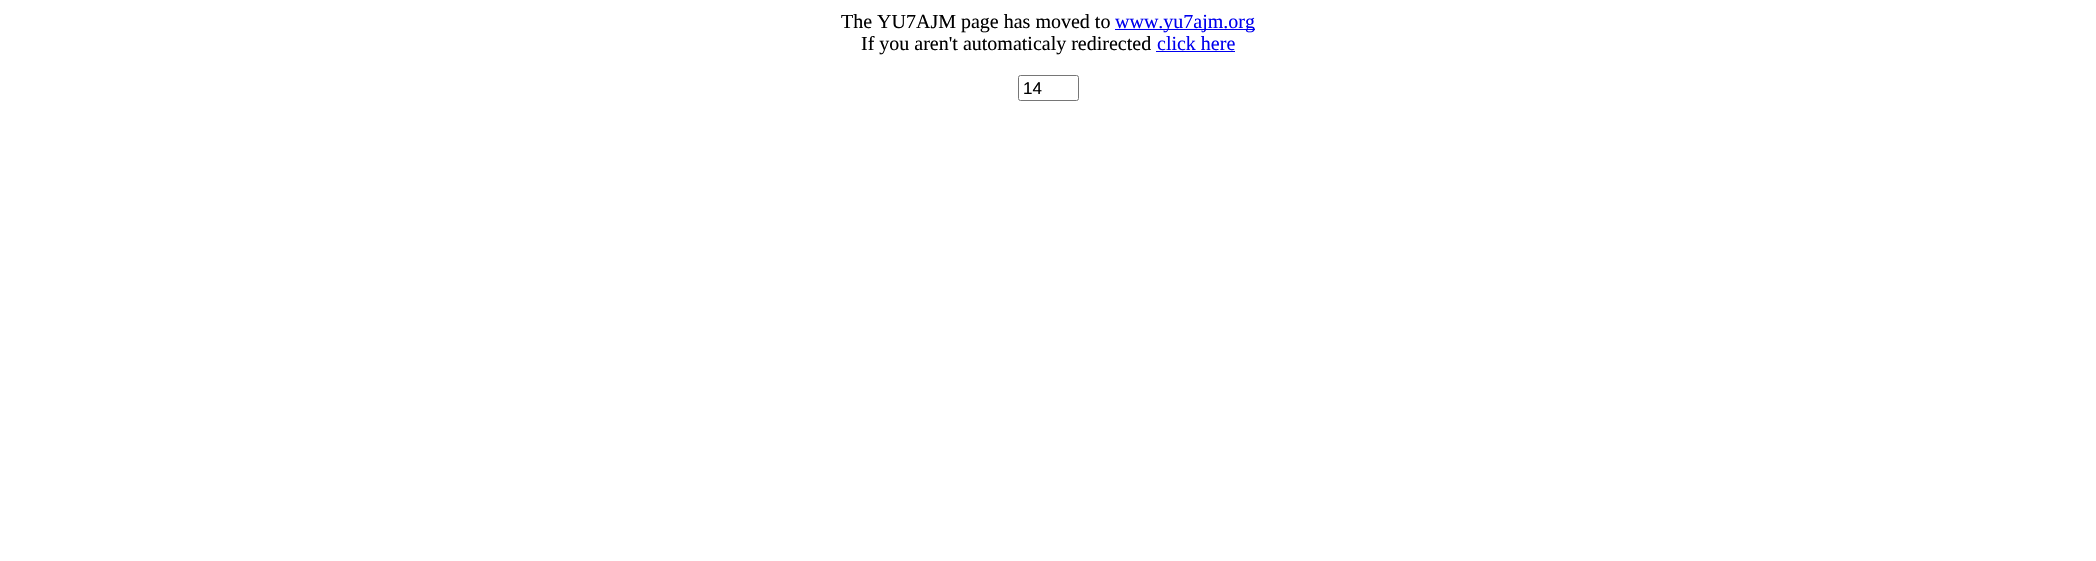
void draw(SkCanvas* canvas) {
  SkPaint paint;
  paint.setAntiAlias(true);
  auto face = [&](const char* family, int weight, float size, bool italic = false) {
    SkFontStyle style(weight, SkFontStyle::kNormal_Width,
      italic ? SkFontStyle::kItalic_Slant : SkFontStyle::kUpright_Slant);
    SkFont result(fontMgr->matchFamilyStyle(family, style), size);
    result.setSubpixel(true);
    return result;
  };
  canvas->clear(0xffffffff);
  paint.setColor(0xff0000ee);
  canvas->drawRect(SkRect::MakeXYWH(1115, 29, 140, 1), paint);
  canvas->drawRect(SkRect::MakeXYWH(1156, 51, 79, 1), paint);
  paint.setStroke(true);
  paint.setStrokeWidth(1);
  paint.setColor(0xff767676);
  canvas->drawRoundRect(SkRect::MakeXYWH(1018.5f, 75.5f, 60, 25), 2, 2, paint);
  auto f0 = face("Liberation Serif", 400, 20);
  paint.setStroke(false);
  paint.setColor(0xff000000);
  canvas->drawString("The YU7AJM page has moved to", 841, 28, f0, paint);
  paint.setColor(0xff0000ee);
  canvas->drawString("www.yu7ajm.org", 1115, 28, f0, paint);
  paint.setColor(0xff000000);
  canvas->drawString("If you aren't automaticaly redirected", 861, 50, f0, paint);
  paint.setColor(0xff0000ee);
  canvas->drawString("click here", 1157, 50, f0, paint);
  auto f1 = face("Liberation Sans", 400, 17);
  paint.setColor(0xff000000);
  canvas->drawString("14", 1023, 94, f1, paint);
}
